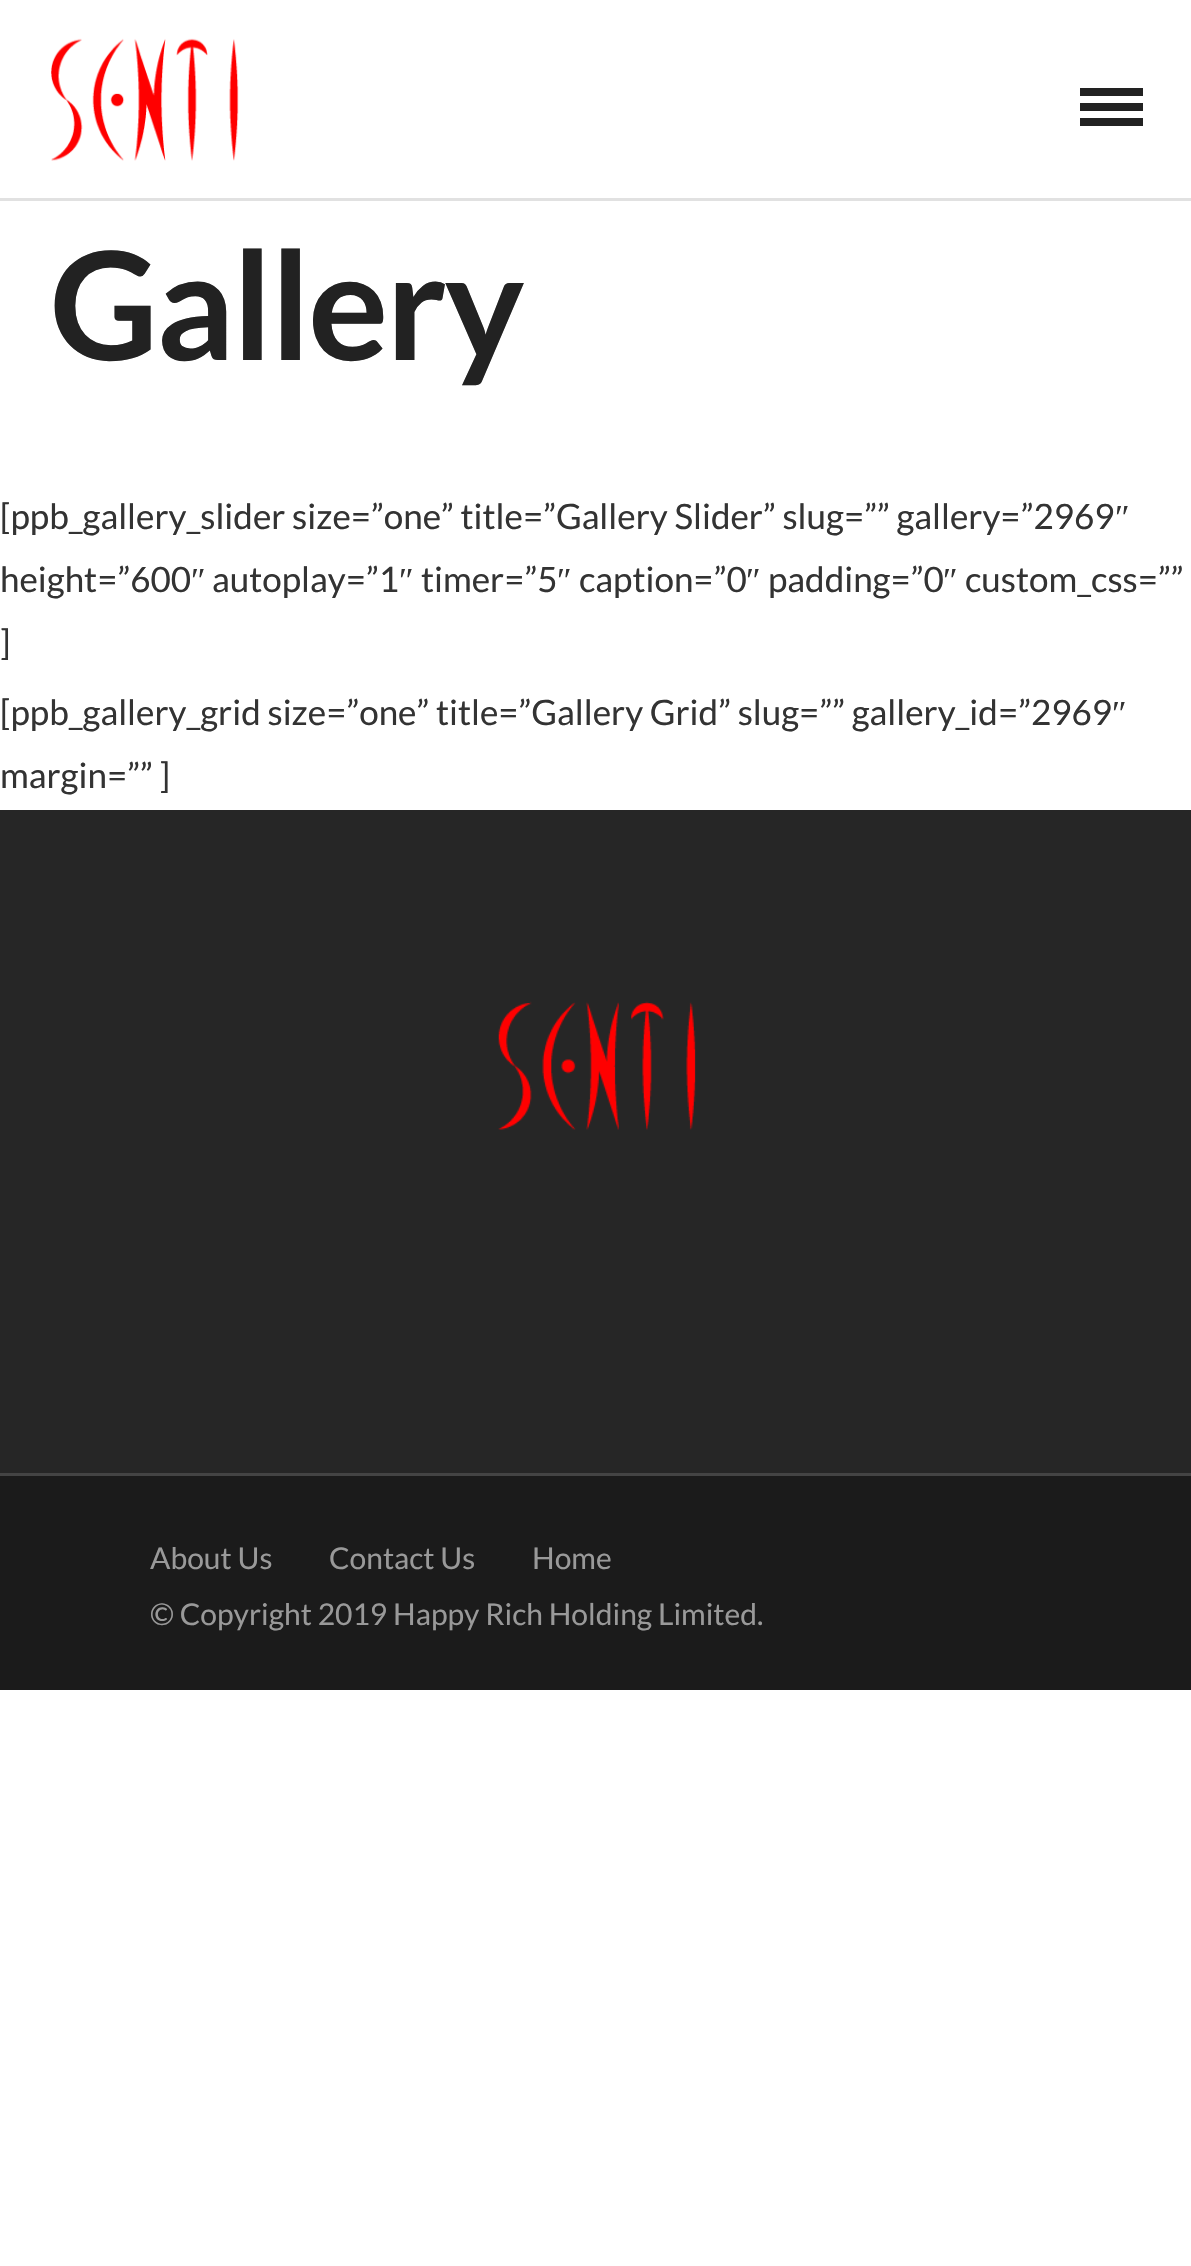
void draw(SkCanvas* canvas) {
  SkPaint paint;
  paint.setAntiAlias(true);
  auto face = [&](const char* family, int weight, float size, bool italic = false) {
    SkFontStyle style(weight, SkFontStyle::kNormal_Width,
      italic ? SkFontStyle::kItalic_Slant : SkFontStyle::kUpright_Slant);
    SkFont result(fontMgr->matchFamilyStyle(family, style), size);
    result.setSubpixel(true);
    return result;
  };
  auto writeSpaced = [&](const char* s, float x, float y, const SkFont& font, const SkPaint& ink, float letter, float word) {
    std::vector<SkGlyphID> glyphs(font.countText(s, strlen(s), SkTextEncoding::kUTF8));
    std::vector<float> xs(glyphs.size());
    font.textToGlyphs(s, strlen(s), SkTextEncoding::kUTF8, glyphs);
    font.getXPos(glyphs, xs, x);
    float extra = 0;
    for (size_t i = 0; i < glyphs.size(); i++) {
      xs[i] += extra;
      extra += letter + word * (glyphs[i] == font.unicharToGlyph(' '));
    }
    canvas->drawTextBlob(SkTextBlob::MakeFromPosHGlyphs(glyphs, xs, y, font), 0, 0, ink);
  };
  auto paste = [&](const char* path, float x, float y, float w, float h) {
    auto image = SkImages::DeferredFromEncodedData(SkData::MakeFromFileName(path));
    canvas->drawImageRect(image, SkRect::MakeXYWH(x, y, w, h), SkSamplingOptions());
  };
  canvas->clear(0xffffffff);
  paint.setColor(0xffe1e1e1);
  canvas->drawRect(SkRect::MakeXYWH(0, 198, 1191, 3), paint);
  paste("img/1.png", 51, 38, 188, 123);
  {
    const struct { float x, y, w, h; SkColor color; } items[] = {
      {1080, 88, 63, 8, 0xff222222},
      {1080, 103, 63, 8, 0xff222222},
      {1080, 118, 63, 8, 0xff222222},
      {0, 810, 1191, 663, 0xff262626},
    };
    for (auto [x, y, w, h, color] : items) {
      paint.setColor(color);
      canvas->drawRect(SkRect::MakeXYWH(x, y, w, h), paint);
    }
  }
  paste("img/2.png", 498, 1001, 198, 129);
  paint.setColor(0xff1b1b1b);
  canvas->drawRect(SkRect::MakeXYWH(0, 1476, 1191, 214), paint);
  paint.setColor(0xff444444);
  canvas->drawRect(SkRect::MakeXYWH(0, 1473, 1191, 3), paint);
  auto f0 = face("Lato", 700, 150);
  paint.setColor(0xff222222);
  writeSpaced("Gallery", 50, 360, f0, paint, -2.5f, 0);
  auto f1 = face("Lato", 400, 35);
  paint.setColor(0xff333333);
  canvas->drawString("[ppb_gallery_slider size=”one” title=”Gallery Slider” slug=”” gallery=”2969", 0, 529, f1, paint);
  auto f2 = face("Liberation Serif", 400, 35);
  canvas->drawString("″", 1115, 529, f2, paint);
  canvas->drawString("height=”600", 0, 592, f1, paint);
  canvas->drawString("″", 191, 592, f2, paint);
  canvas->drawString("autoplay=”1", 212, 592, f1, paint);
  canvas->drawString("″", 399, 592, f2, paint);
  canvas->drawString("timer=”5", 421, 592, f1, paint);
  canvas->drawString("″", 557, 592, f2, paint);
  canvas->drawString("caption=”0", 579, 592, f1, paint);
  canvas->drawString("″", 746, 592, f2, paint);
  canvas->drawString("padding=”0", 768, 592, f1, paint);
  canvas->drawString("″", 943, 592, f2, paint);
  {
    const struct { const char* s; float x, y; } items[] = {
      {"custom_css=””", 965, 592},
      {"]", 0, 655},
      {"[ppb_gallery_grid size=”one” title=”Gallery Grid” slug=”” gallery_id=”2969", 0, 725},
    };
    for (auto [s, x, y] : items) {
      canvas->drawString(s, x, y, f1, paint);
    }
  }
  canvas->drawString("″", 1112, 725, f2, paint);
  canvas->drawString("margin=”” ]", 0, 788, f1, paint);
  auto f3 = face("Lato", 400, 30);
  paint.setColor(0xff999999);
  {
    const struct { const char* s; float x, y; } items[] = {
      {"About Us", 150, 1569},
      {"Contact Us", 329, 1569},
      {"Home", 532, 1569},
      {"© Copyright 2019 Happy Rich Holding Limited.", 150, 1625},
    };
    for (auto [s, x, y] : items) {
      canvas->drawString(s, x, y, f3, paint);
    }
  }
}
